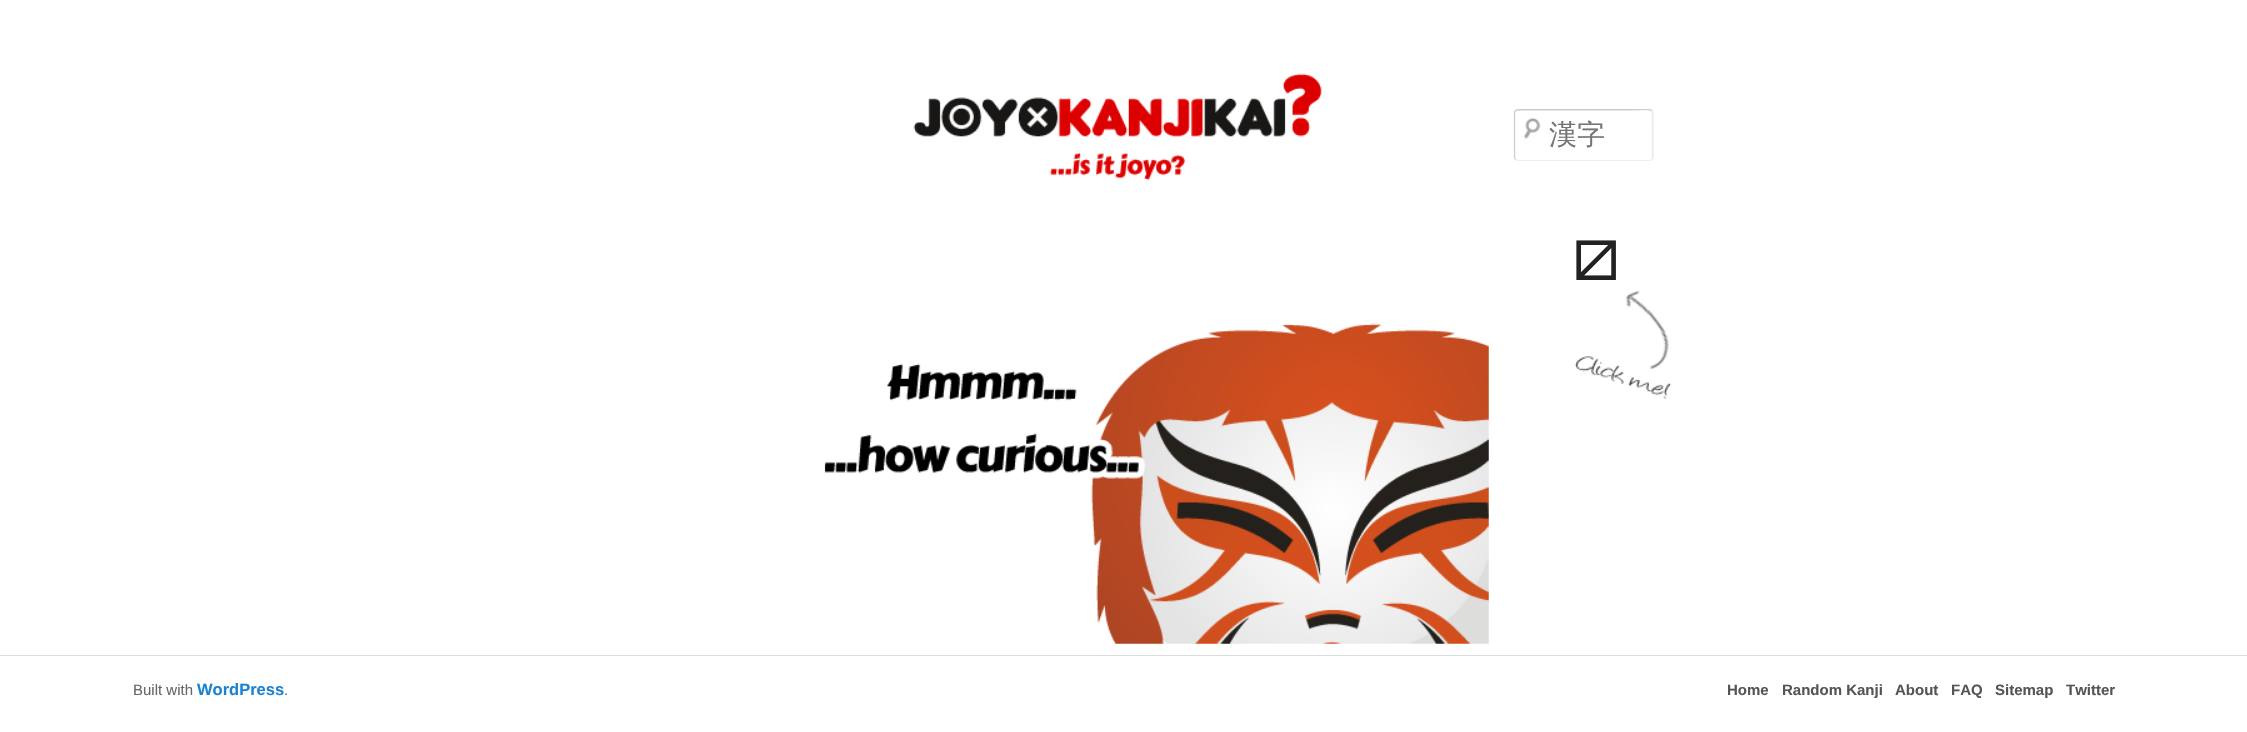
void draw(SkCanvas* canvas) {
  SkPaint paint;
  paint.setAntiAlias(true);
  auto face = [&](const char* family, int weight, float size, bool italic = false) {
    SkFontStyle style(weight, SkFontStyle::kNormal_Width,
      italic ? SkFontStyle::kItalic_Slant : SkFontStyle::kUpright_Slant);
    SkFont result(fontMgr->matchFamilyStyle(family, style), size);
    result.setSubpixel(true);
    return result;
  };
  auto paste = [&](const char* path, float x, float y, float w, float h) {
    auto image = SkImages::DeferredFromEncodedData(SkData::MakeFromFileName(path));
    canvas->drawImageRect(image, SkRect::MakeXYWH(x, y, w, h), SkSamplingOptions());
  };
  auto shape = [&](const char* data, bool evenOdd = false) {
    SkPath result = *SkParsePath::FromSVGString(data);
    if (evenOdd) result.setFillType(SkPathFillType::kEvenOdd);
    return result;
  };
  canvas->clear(0xffffffff);
  paste("img/1.png", 913, 73, 409, 108);
  paste("img/2.png", 1523, 117, 18, 22);
  paint.setColor(0xffe6e6e6);
  canvas->drawPath(shape("M1518 111H1628C1656 111 1652 105 1652 129V160C1653 159 1653 158 1653 158V112C1653 111 1652 110 1650 110H1518C1516 110 1515 111 1515 112V114C1515 112 1516 111 1518 111Z"), paint);
  paint.setStroke(true);
  paint.setStrokeWidth(1.2f);
  paint.setColor(0xffeeeeee);
  canvas->drawPath(shape("M1652 110.5L1653 112.5V157.5L1652 159.5L1650 160.5H1517.5L1515.5 159.5"), paint);
  paint.setColor(0xffcccccc);
  canvas->drawPath(shape("M1515.5 159.5L1514.5 157.5V112.5L1515.5 110.5L1517.5 109.5H1650L1652 110.5"), paint);
  paste("img/3.png", 1575, 290, 97, 109);
  paste("img/4.png", 824, 323, 665, 321);
  paint.setStroke(false);
  paint.setColor(0xffdddddd);
  canvas->drawRect(SkRect::MakeXYWH(0, 655, 2247, 1), paint);
  auto f0 = face("WenQuanYi Zen Hei", 500, 28);
  paint.setColor(0xff757575);
  canvas->drawString("漢字", 1549, 144, f0, paint);
  auto f1 = face("IPAGothic", 700, 45);
  paint.setColor(0xff222222);
  canvas->drawString("〼", 1573, 278, f1, paint);
  auto f2 = face("Liberation Sans", 400, 15);
  paint.setColor(0xff666666);
  canvas->drawString("Built with", 133, 695, f2, paint);
  auto f3 = face("Liberation Sans", 700, 16.5f);
  paint.setColor(0xff1982d1);
  canvas->drawString("WordPress", 197, 695, f3, paint);
  paint.setColor(0xff666666);
  canvas->drawString(".", 284, 695, f2, paint);
  auto f4 = face("Liberation Sans", 700, 15);
  paint.setColor(0xff555555);
  {
    const struct { const char* s; float x, y; } items[] = {
      {"Home", 1727, 695},
      {"Random Kanji", 1782, 695},
      {"About", 1895, 695},
      {"FAQ", 1951, 695},
      {"Sitemap", 1995, 695},
      {"Twitter", 2066, 695},
    };
    for (auto [s, x, y] : items) {
      canvas->drawString(s, x, y, f4, paint);
    }
  }
}
